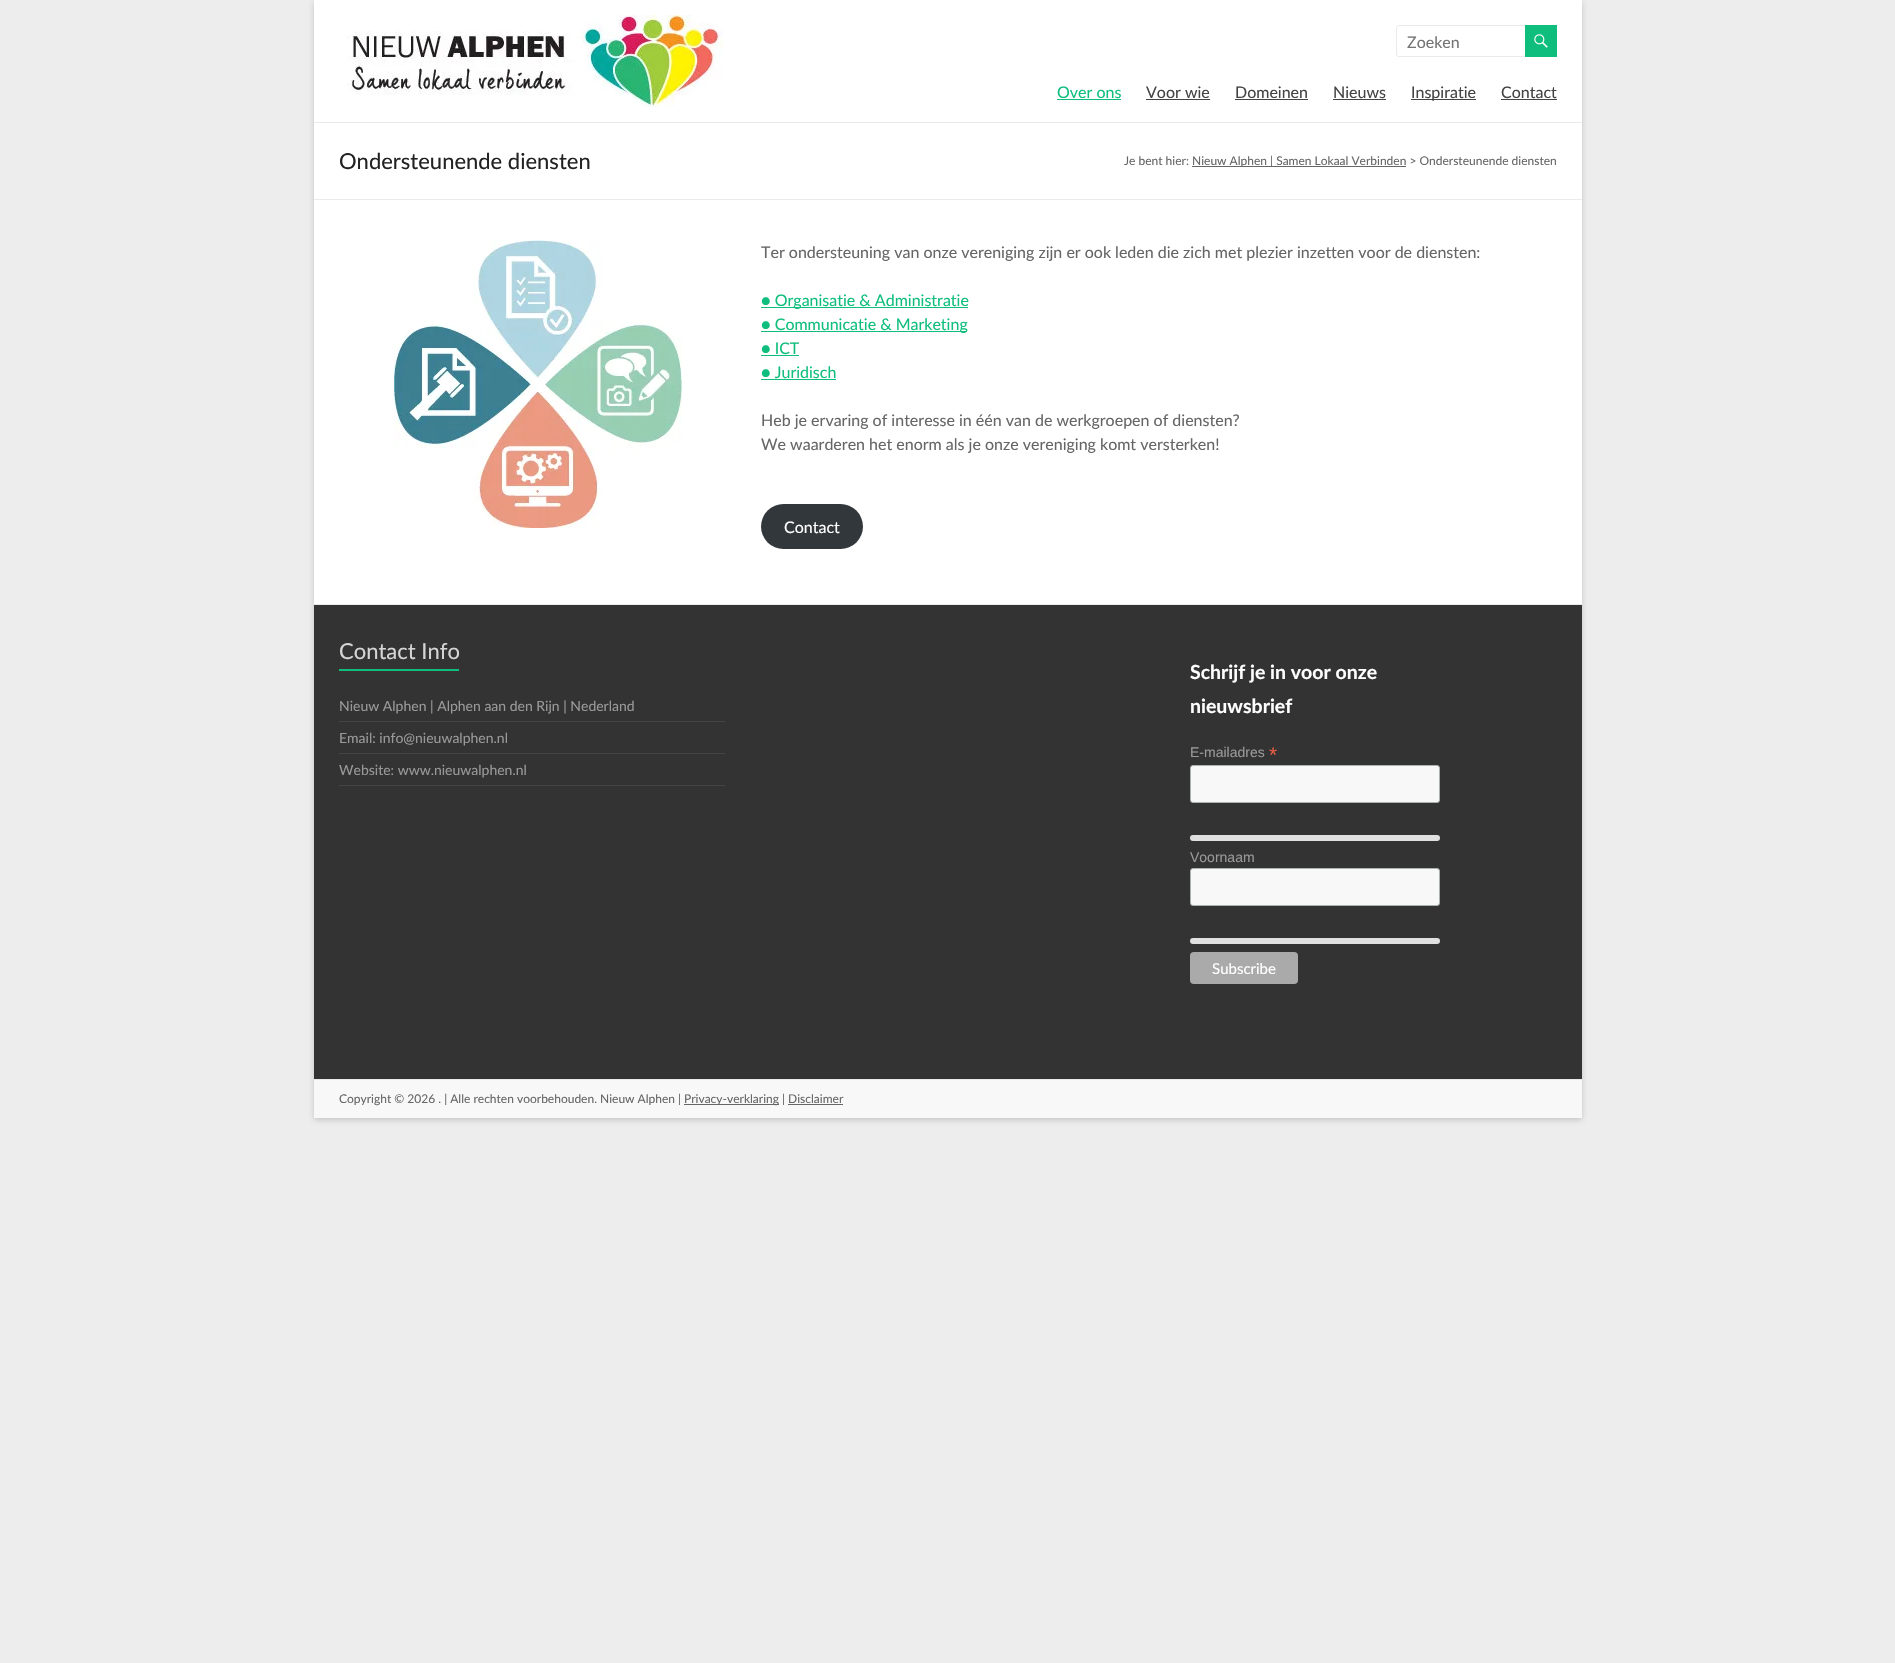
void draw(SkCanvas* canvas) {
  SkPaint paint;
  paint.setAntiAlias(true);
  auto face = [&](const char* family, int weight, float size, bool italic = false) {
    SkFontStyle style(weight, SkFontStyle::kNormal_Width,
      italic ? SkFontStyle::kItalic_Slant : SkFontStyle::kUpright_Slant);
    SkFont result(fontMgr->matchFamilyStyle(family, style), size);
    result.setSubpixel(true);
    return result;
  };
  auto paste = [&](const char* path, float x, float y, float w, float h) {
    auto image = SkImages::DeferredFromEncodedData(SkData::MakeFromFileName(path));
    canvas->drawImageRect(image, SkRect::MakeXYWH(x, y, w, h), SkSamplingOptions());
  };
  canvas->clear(0xffededed);
  paint.setColor(0x4d646464);
  paint.setMaskFilter(SkMaskFilter::MakeBlur(kNormal_SkBlurStyle, 3));
  canvas->drawRect(SkRect::MakeXYWH(314, 2, 1268, 1118), paint);
  paint.setMaskFilter(nullptr);
  paint.setColor(0xffffffff);
  canvas->drawRect(SkRect::MakeXYWH(314, 0, 1268, 604), paint);
  paint.setColor(0xffeaeaea);
  canvas->drawRect(SkRect::MakeXYWH(314, 122, 1268, 1), paint);
  paste("img/1.png", 347, 15, 376, 92);
  paint.setStroke(true);
  paint.setStrokeWidth(1);
  canvas->drawRoundRect(SkRect::MakeXYWH(1396.5f, 25.5f, 129, 31), 2.5f, 2.5f, paint);
  paint.setStroke(false);
  paint.setColor(0xff0fbe7c);
  canvas->drawRect(SkRect::MakeXYWH(1525, 25, 32, 32), paint);
  paste("img/2.png", 1534, 34, 14, 14);
  {
    const struct { float x, y, w, h; SkColor color; } items[] = {
      {1057, 99, 64, 1, 0xff0fbe7c},
      {1146, 99, 64, 1, 0xff444444},
      {1235, 99, 73, 1, 0xff444444},
      {1333, 99, 53, 1, 0xff444444},
      {1411, 99, 65, 1, 0xff444444},
      {1501, 99, 56, 1, 0xff444444},
      {314, 199, 1268, 1, 0xffeaeaea},
      {1192, 166, 214, 1, 0xff666666},
    };
    for (auto [x, y, w, h, color] : items) {
      paint.setColor(color);
      canvas->drawRect(SkRect::MakeXYWH(x, y, w, h), paint);
    }
  }
  paste("img/3.png", 394, 240, 288, 288);
  {
    const struct { float x, y, w, h; SkColor color; } items[] = {
      {761, 307, 207, 1, 0xff0fbe7c},
      {761, 331, 206, 1, 0xff0fbe7c},
      {761, 355, 38, 1, 0xff0fbe7c},
      {761, 379, 75, 1, 0xff0fbe7c},
    };
    for (auto [x, y, w, h, color] : items) {
      paint.setColor(color);
      canvas->drawRect(SkRect::MakeXYWH(x, y, w, h), paint);
    }
  }
  paint.setColor(0xff32373c);
  canvas->drawRoundRect(SkRect::MakeXYWH(761, 504, 102, 45), 22.5f, 22.5f, paint);
  {
    const struct { float x, y, w, h; SkColor color; } items[] = {
      {314, 605, 1268, 474, 0xff333333},
      {314, 604, 1268, 1, 0xffeaeaea},
      {339, 669, 120, 2, 0xff0fbe7c},
      {339, 721, 386, 1, 0xff444444},
      {339, 753, 386, 1, 0xff444444},
      {339, 785, 386, 1, 0xff444444},
    };
    for (auto [x, y, w, h, color] : items) {
      paint.setColor(color);
      canvas->drawRect(SkRect::MakeXYWH(x, y, w, h), paint);
    }
  }
  paint.setColor(0xfff8f8f8);
  canvas->drawRoundRect(SkRect::MakeXYWH(1190.5f, 765.5f, 249, 37), 2.5f, 2.5f, paint);
  paint.setStroke(true);
  paint.setColor(0xffabb0b2);
  canvas->drawRoundRect(SkRect::MakeXYWH(1190.5f, 765.5f, 249, 37), 2.5f, 2.5f, paint);
  paint.setStroke(false);
  paint.setColor(0xffe0e0e0);
  canvas->drawRoundRect(SkRect::MakeXYWH(1190, 835, 250, 6), 3, 3, paint);
  paint.setColor(0xfff8f8f8);
  canvas->drawRoundRect(SkRect::MakeXYWH(1190.5f, 868.5f, 249, 37), 2.5f, 2.5f, paint);
  paint.setStroke(true);
  paint.setColor(0xffabb0b2);
  canvas->drawRoundRect(SkRect::MakeXYWH(1190.5f, 868.5f, 249, 37), 2.5f, 2.5f, paint);
  paint.setStroke(false);
  paint.setColor(0xffe0e0e0);
  canvas->drawRoundRect(SkRect::MakeXYWH(1190, 938, 250, 6), 3, 3, paint);
  paint.setColor(0xffaaaaaa);
  canvas->drawRoundRect(SkRect::MakeXYWH(1190, 952, 108, 32), 4, 4, paint);
  {
    const struct { float x, y, w, h; SkColor color; } items[] = {
      {314, 1080, 1268, 38, 0xfff8f8f8},
      {314, 1079, 1268, 1, 0xffeaeaea},
      {684, 1104, 95, 1, 0xff666666},
      {788, 1104, 55, 1, 0xff666666},
    };
    for (auto [x, y, w, h, color] : items) {
      paint.setColor(color);
      canvas->drawRect(SkRect::MakeXYWH(x, y, w, h), paint);
    }
  }
  auto f0 = face("Lato", 400, 16);
  paint.setColor(0xff757575);
  canvas->drawString("Zoeken", 1407, 48, f0, paint);
  paint.setColor(0xff0fbe7c);
  canvas->drawString("Over ons", 1057, 98, f0, paint);
  paint.setColor(0xff444444);
  {
    const struct { const char* s; float x, y; } items[] = {
      {"Voor wie", 1146, 98},
      {"Domeinen", 1235, 98},
      {"Nieuws", 1333, 98},
      {"Inspiratie", 1411, 98},
      {"Contact", 1501, 98},
    };
    for (auto [s, x, y] : items) {
      canvas->drawString(s, x, y, f0, paint);
    }
  }
  auto f1 = face("Lato", 400, 22);
  paint.setColor(0xff222222);
  canvas->drawString("Ondersteunende diensten", 339, 169, f1, paint);
  auto f2 = face("Lato", 400, 12);
  paint.setColor(0xff666666);
  canvas->drawString("Je bent hier:", 1124, 165, f2, paint);
  canvas->drawString("Nieuw Alphen | Samen Lokaal Verbinden > Ondersteunende diensten", 1192, 165, f2, paint);
  canvas->drawString("Ter ondersteuning van onze vereniging zijn er ook leden die zich met plezier inzetten voor de diensten:", 761, 258, f0, paint);
  paint.setColor(0xff0fbe7c);
  {
    const struct { const char* s; float x, y; } items[] = {
      {"● Organisatie & Administratie", 761, 306},
      {"● Communicatie & Marketing", 761, 330},
      {"● ICT", 761, 354},
      {"● Juridisch", 761, 378},
    };
    for (auto [s, x, y] : items) {
      canvas->drawString(s, x, y, f0, paint);
    }
  }
  paint.setColor(0xff666666);
  canvas->drawString("Heb je ervaring of interesse in één van de werkgroepen of diensten?", 761, 426, f0, paint);
  canvas->drawString("We waarderen het enorm als je onze vereniging komt versterken!", 761, 450, f0, paint);
  paint.setColor(0xffffffff);
  canvas->drawString("Contact", 784, 533, f0, paint);
  paint.setColor(0xffd5d5d5);
  canvas->drawString("Contact Info", 339, 659, f1, paint);
  auto f3 = face("Lato", 400, 14);
  paint.setColor(0xff999999);
  {
    const struct { const char* s; float x, y; } items[] = {
      {"Nieuw Alphen | Alphen aan den Rijn | Nederland", 339, 711},
      {"Email: info@nieuwalphen.nl", 339, 743},
      {"Website: www.nieuwalphen.nl", 339, 775},
    };
    for (auto [s, x, y] : items) {
      canvas->drawString(s, x, y, f3, paint);
    }
  }
  auto f4 = face("Lato", 700, 19.5f);
  paint.setColor(0xffffffff);
  canvas->drawString("Schrijf je in voor onze", 1190, 679, f4, paint);
  canvas->drawString("nieuwsbrief", 1190, 713, f4, paint);
  auto f5 = face("Liberation Sans", 400, 14);
  paint.setColor(0xff999999);
  canvas->drawString("E-mailadres", 1190, 757, f5, paint);
  auto f6 = face("Liberation Sans", 400, 21);
  paint.setColor(0xffe85c41);
  canvas->drawString("*", 1269, 762, f6, paint);
  paint.setColor(0xff999999);
  canvas->drawString("Voornaam", 1190, 862, f5, paint);
  auto f7 = face("Lato", 400, 15);
  paint.setColor(0xffffffff);
  canvas->drawString("Subscribe", 1212, 974, f7, paint);
  paint.setColor(0xff666666);
  canvas->drawString("Copyright © 2026 . | Alle rechten voorbehouden. Nieuw Alphen |", 339, 1103, f2, paint);
  canvas->drawString("Privacy-verklaring | Disclaimer", 684, 1103, f2, paint);
}
